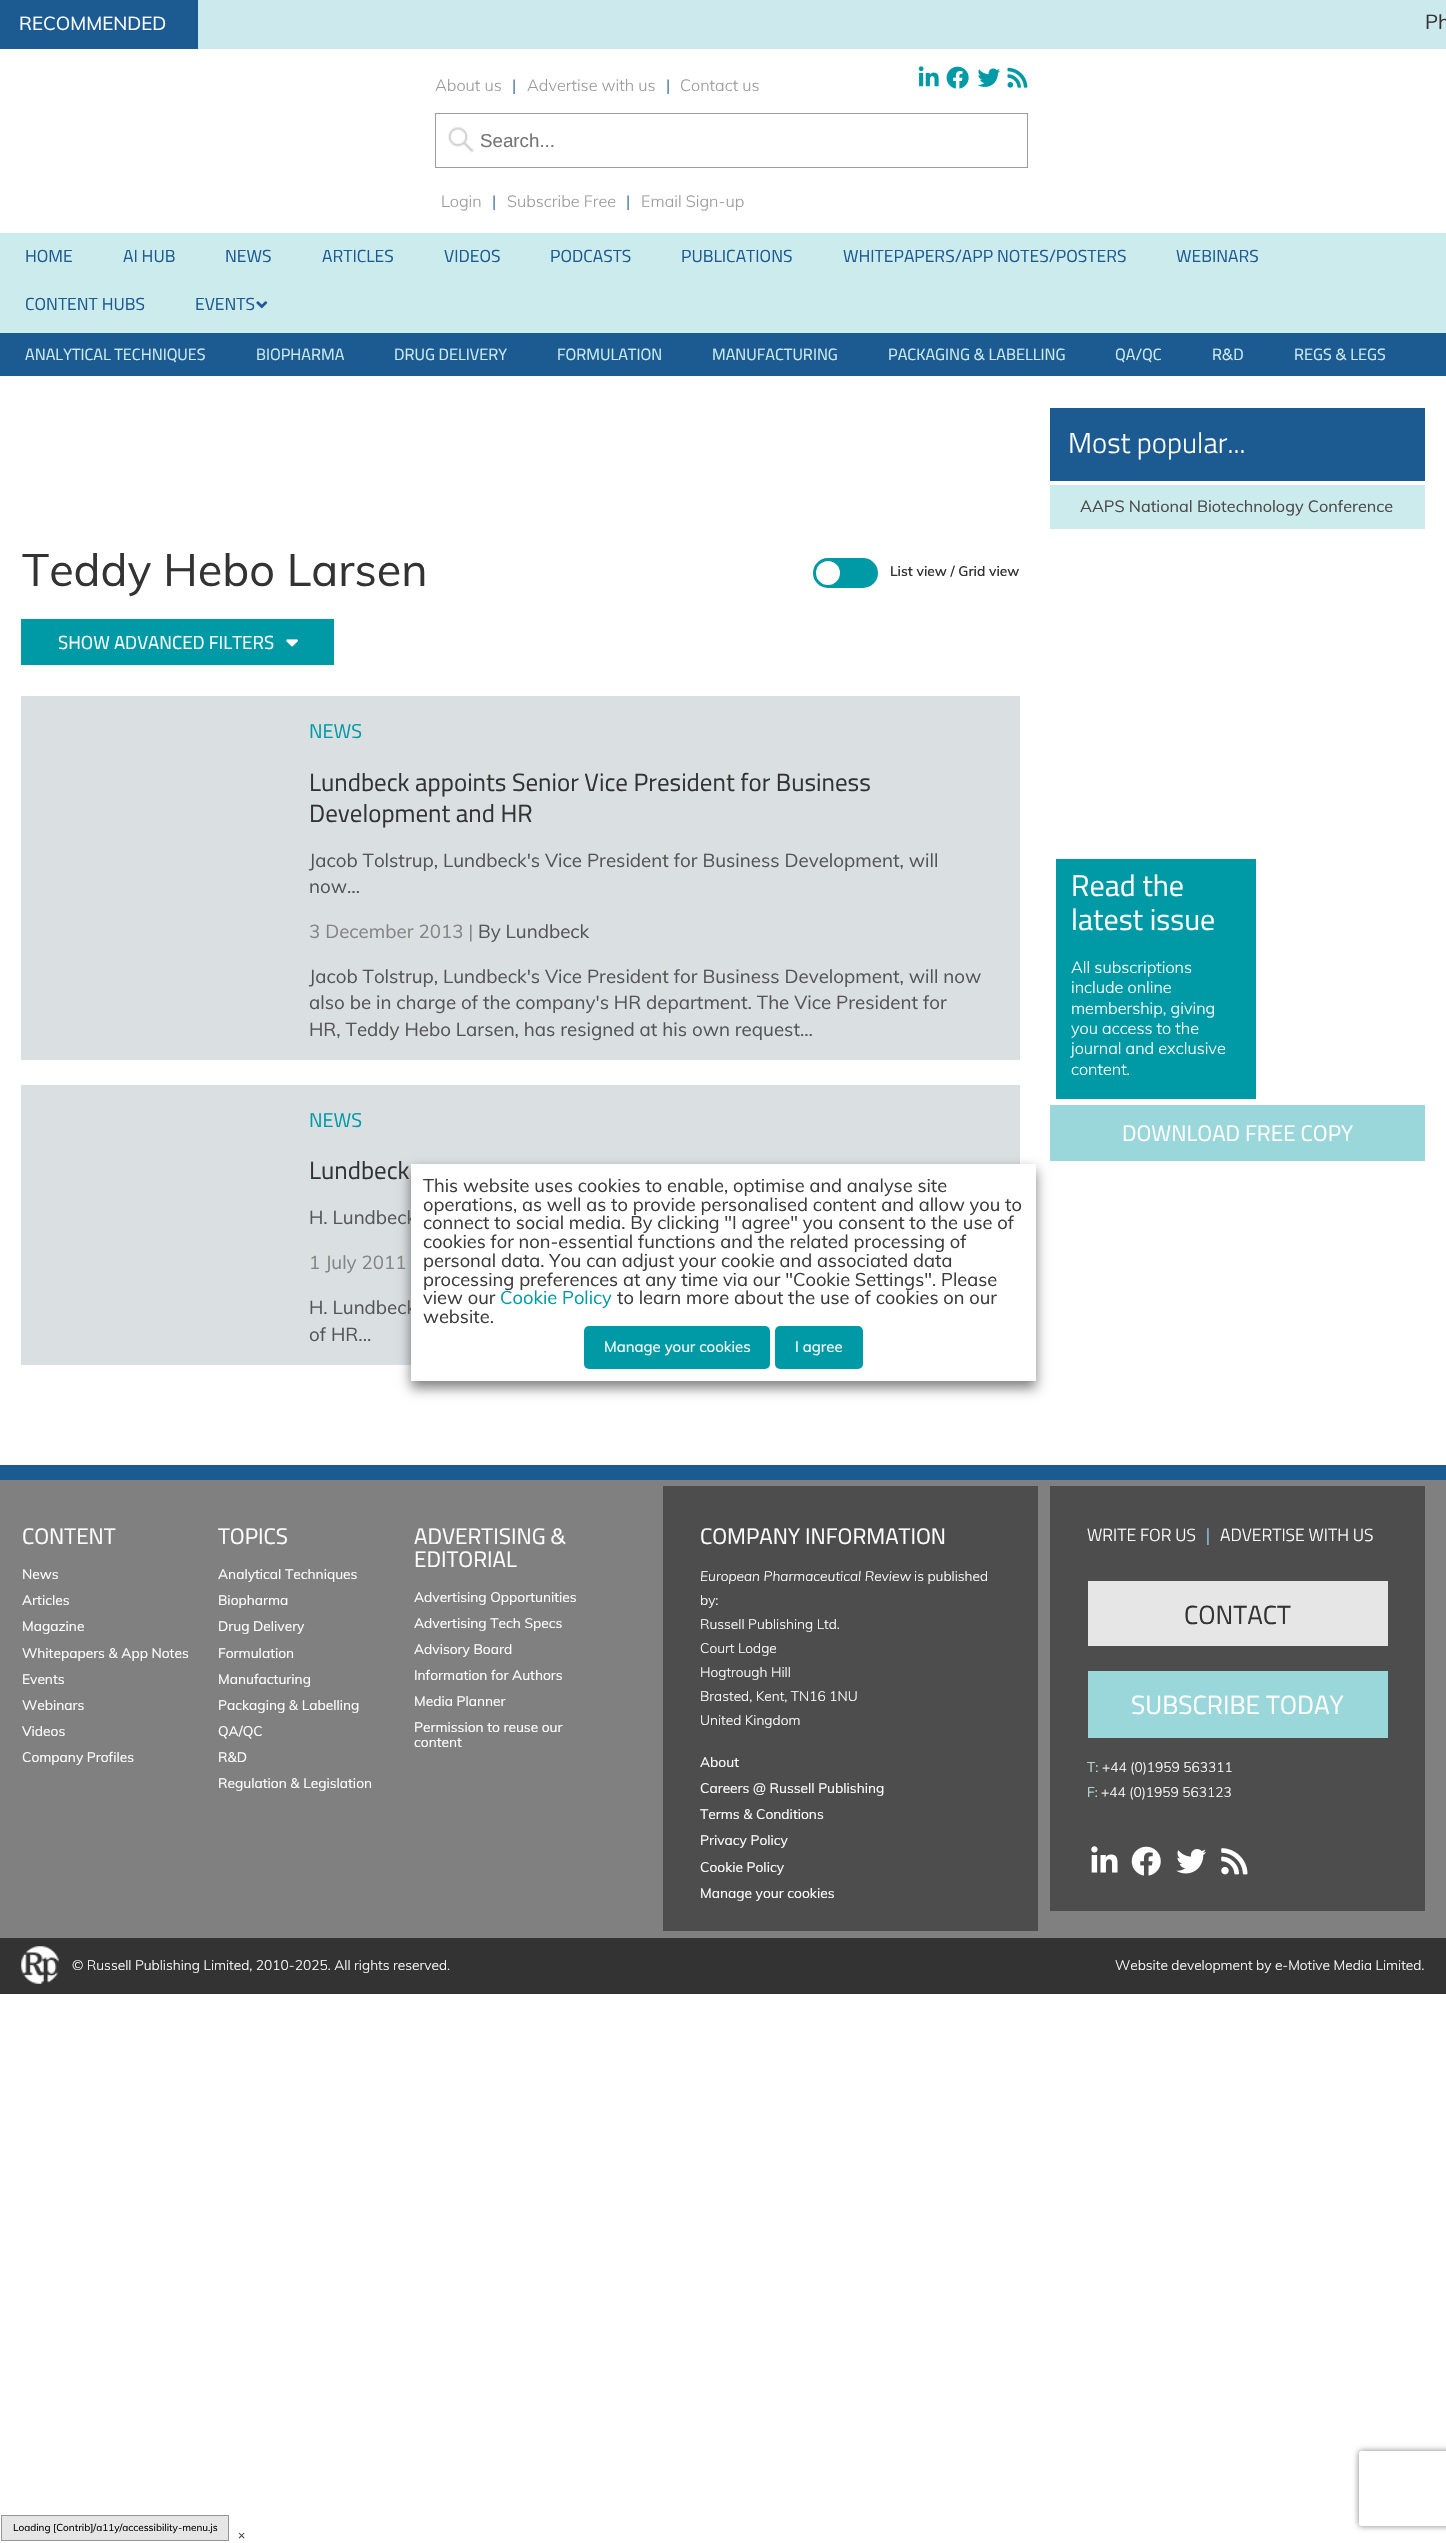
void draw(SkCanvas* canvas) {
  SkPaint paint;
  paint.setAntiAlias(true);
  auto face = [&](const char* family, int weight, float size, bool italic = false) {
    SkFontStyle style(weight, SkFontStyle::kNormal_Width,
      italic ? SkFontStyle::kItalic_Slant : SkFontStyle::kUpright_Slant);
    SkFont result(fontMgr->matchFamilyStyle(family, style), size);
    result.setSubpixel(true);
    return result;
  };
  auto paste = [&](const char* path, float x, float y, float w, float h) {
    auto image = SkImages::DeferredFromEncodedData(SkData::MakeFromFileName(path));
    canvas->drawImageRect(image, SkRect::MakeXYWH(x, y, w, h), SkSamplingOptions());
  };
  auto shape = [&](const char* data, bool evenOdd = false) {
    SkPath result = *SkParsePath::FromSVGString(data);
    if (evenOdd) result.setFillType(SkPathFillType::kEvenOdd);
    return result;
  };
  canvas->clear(0xffffffff);
  paint.setColor(0xffcceaed);
  canvas->drawRect(SkRect::MakeXYWH(198, 0, 1248, 49), paint);
  paint.setColor(0xff1c5a92);
  canvas->drawRect(SkRect::MakeXYWH(0, 0, 198, 49), paint);
  paste("img/1.png", 918, 66, 21, 21);
  paste("img/2.png", 946, 66, 23, 23);
  paste("img/3.png", 977, 68, 24, 19);
  paste("img/4.png", 1007, 67, 21, 21);
  paste("img/5.png", 448, 127, 26, 26);
  paint.setStroke(true);
  paint.setStrokeWidth(1);
  paint.setColor(0xff9d9d9d);
  canvas->drawRect(SkRect::MakeXYWH(435.5f, 113.5f, 592, 54), paint);
  paint.setStroke(false);
  paint.setColor(0xffccebed);
  canvas->drawRect(SkRect::MakeXYWH(0, 233, 1446, 100), paint);
  paste("img/6.png", 256, 301, 12, 8);
  paint.setColor(0xff1c5a92);
  canvas->drawRect(SkRect::MakeXYWH(0, 333, 1446, 43), paint);
  paint.setColor(0xff009aa6);
  canvas->drawRoundRect(SkRect::MakeXYWH(816.5f, 559.5f, 60, 27), 13.5f, 13.5f, paint);
  paint.setStroke(true);
  paint.setStrokeWidth(3);
  canvas->drawRoundRect(SkRect::MakeXYWH(816.5f, 559.5f, 60, 27), 13.5f, 13.5f, paint);
  paint.setStroke(false);
  paint.setColor(0xffffffff);
  canvas->drawCircle(828, 573, 13.5f, paint);
  paint.setStroke(true);
  paint.setColor(0xff009aa6);
  canvas->drawCircle(828, 573, 13.5f, paint);
  paint.setStroke(false);
  canvas->drawRect(SkRect::MakeXYWH(21, 619, 313, 46), paint);
  paste("img/7.png", 286, 639, 12, 8);
  {
    const struct { float x, y, w, h; SkColor color; } items[] = {
      {21, 696, 999, 364, 0xffdadfe2},
      {21, 1085, 999, 280, 0xffdadfe2},
      {1050, 408, 375, 73, 0xff1c5a92},
      {1050, 485, 375, 44, 0xffccebed},
      {1056, 859, 200, 240, 0xff009aa6},
      {1050, 1105, 375, 56, 0xff99d7db},
    };
    for (auto [x, y, w, h, color] : items) {
      paint.setColor(color);
      canvas->drawRect(SkRect::MakeXYWH(x, y, w, h), paint);
    }
  }
  paint.setColor(0x80000000);
  paint.setMaskFilter(SkMaskFilter::MakeBlur(kNormal_SkBlurStyle, 6));
  canvas->drawRect(SkRect::MakeXYWH(411, 1170, 625, 218), paint);
  paint.setMaskFilter(nullptr);
  {
    const struct { float x, y, w, h; SkColor color; } items[] = {
      {0, 1480, 1446, 458, 0xff808080},
      {0, 1465, 1446, 15, 0xff1c5a92},
      {663, 1486, 375, 445, 0xff4d4d4d},
      {1050, 1486, 375, 425, 0xff4d4d4d},
      {1088, 1581, 300, 65, 0xffe6e6e6},
      {1088, 1671, 300, 67, 0xff99d7db},
    };
    for (auto [x, y, w, h, color] : items) {
      paint.setColor(color);
      canvas->drawRect(SkRect::MakeXYWH(x, y, w, h), paint);
    }
  }
  paste("img/8.png", 1091, 1846, 27, 27);
  paste("img/9.png", 1131, 1846, 30, 30);
  paste("img/10.png", 1176, 1849, 31, 25);
  paste("img/11.png", 1221, 1848, 27, 27);
  paint.setColor(0xff333333);
  canvas->drawRect(SkRect::MakeXYWH(0, 1938, 1446, 56), paint);
  paste("img/12.png", 21, 1946, 38, 38);
  paint.setColor(0xffe6e6e6);
  canvas->drawRect(SkRect::MakeXYWH(1.5f, 2515.5f, 227, 25), paint);
  paint.setStroke(true);
  paint.setStrokeWidth(1);
  paint.setColor(0xff959595);
  canvas->drawRect(SkRect::MakeXYWH(1.5f, 2515.5f, 227, 25), paint);
  canvas->save();
  canvas->clipPath(shape("M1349 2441H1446V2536H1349ZM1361.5 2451H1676.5C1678 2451 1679 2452 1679 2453.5V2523.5C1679 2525 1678 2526 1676.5 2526H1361.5C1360 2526 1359 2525 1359 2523.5V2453.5C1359 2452 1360 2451 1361.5 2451Z", true), true);
  paint.setStroke(false);
  paint.setColor(0xff808080);
  paint.setMaskFilter(SkMaskFilter::MakeBlur(kNormal_SkBlurStyle, 3));
  canvas->drawRoundRect(SkRect::MakeXYWH(1359, 2451, 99, 75), 2.5f, 2.5f, paint);
  paint.setMaskFilter(nullptr);
  canvas->restore();
  auto f0 = face("Muli", 400, 18.75f);
  paint.setColor(0xffffffff);
  canvas->drawString("RECOMMENDED", 19, 30, f0, paint);
  auto f1 = face("Muli", 400, 20);
  paint.setColor(0xff333333);
  canvas->drawString("Ph", 1425, 29, f1, paint);
  auto f2 = face("Muli", 300, 16.25f);
  paint.setColor(0xff999999);
  canvas->drawString("About us", 435, 91, f2, paint);
  paint.setColor(0xff1c5a92);
  canvas->drawString("|", 512, 91, f2, paint);
  paint.setColor(0xff999999);
  canvas->drawString("Advertise with us", 527, 91, f2, paint);
  paint.setColor(0xff1c5a92);
  canvas->drawString("|", 666, 91, f2, paint);
  paint.setColor(0xff999999);
  canvas->drawString("Contact us", 680, 91, f2, paint);
  auto f3 = face("Liberation Sans", 400, 18.75f);
  paint.setColor(0xff757575);
  canvas->drawString("Search...", 480, 147, f3, paint);
  paint.setColor(0xff999999);
  canvas->drawString("Login", 441, 207, f2, paint);
  paint.setColor(0xff1c5a92);
  canvas->drawString("|", 492, 207, f2, paint);
  paint.setColor(0xff999999);
  canvas->drawString("Subscribe Free", 507, 207, f2, paint);
  paint.setColor(0xff1c5a92);
  canvas->drawString("|", 626, 207, f2, paint);
  paint.setColor(0xff999999);
  canvas->drawString("Email Sign-up", 641, 207, f2, paint);
  auto f4 = face("Titillium Web", 400, 17.5f);
  paint.setColor(0xff1c5a92);
  {
    const struct { const char* s; float x, y; } items[] = {
      {"HOME", 25, 262},
      {"AI HUB", 123, 262},
      {"NEWS", 225, 262},
      {"ARTICLES", 322, 262},
      {"VIDEOS", 444, 262},
      {"PODCASTS", 550, 262},
      {"PUBLICATIONS", 681, 262},
      {"WHITEPAPERS/APP NOTES/POSTERS", 843, 262},
      {"WEBINARS", 1176, 262},
      {"CONTENT HUBS", 25, 310},
      {"EVENTS", 195, 310},
    };
    for (auto [s, x, y] : items) {
      canvas->drawString(s, x, y, f4, paint);
    }
  }
  auto f5 = face("Titillium Web", 400, 16.25f);
  paint.setColor(0xffccebed);
  {
    const struct { const char* s; float x, y; } items[] = {
      {"ANALYTICAL TECHNIQUES", 25, 360},
      {"BIOPHARMA", 256, 360},
      {"DRUG DELIVERY", 394, 360},
      {"FORMULATION", 557, 360},
      {"MANUFACTURING", 712, 360},
      {"PACKAGING & LABELLING", 888, 360},
      {"QA/QC", 1115, 360},
      {"R&D", 1212, 360},
      {"REGS & LEGS", 1294, 360},
    };
    for (auto [s, x, y] : items) {
      canvas->drawString(s, x, y, f5, paint);
    }
  }
  auto f6 = face("Muli", 400, 45);
  paint.setColor(0xff333333);
  canvas->drawString("Teddy Hebo Larsen", 22, 586, f6, paint);
  auto f7 = face("Muli", 600, 13.75f);
  canvas->drawString("List view / Grid view", 890, 576, f7, paint);
  auto f8 = face("Titillium Web", 400, 18.75f);
  paint.setColor(0xffffffff);
  canvas->drawString("SHOW ADVANCED FILTERS", 58, 649, f8, paint);
  auto f9 = face("Titillium Web", 400, 20);
  paint.setColor(0xff009aa6);
  canvas->drawString("NEWS", 309, 738, f9, paint);
  auto f10 = face("Titillium Web", 400, 25);
  paint.setColor(0xff333333);
  canvas->drawString("Lundbeck appoints Senior Vice President for Business", 309, 791, f10, paint);
  canvas->drawString("Development and HR", 309, 822, f10, paint);
  paint.setColor(0xff555555);
  canvas->drawString("Jacob Tolstrup, Lundbeck's Vice President for Business Development, will", 309, 867, f0, paint);
  canvas->drawString("now…", 309, 893, f0, paint);
  paint.setColor(0xff868484);
  canvas->drawString("3 December 2013 |", 309, 938, f0, paint);
  paint.setColor(0xff555555);
  {
    const struct { const char* s; float x, y; } items[] = {
      {"By Lundbeck", 478, 938},
      {"Jacob Tolstrup, Lundbeck's Vice President for Business Development, will now", 309, 983},
      {"also be in charge of the company's HR department. The Vice President for", 309, 1009},
      {"HR, Teddy Hebo Larsen, has resigned at his own request...", 309, 1036},
    };
    for (auto [s, x, y] : items) {
      canvas->drawString(s, x, y, f0, paint);
    }
  }
  paint.setColor(0xff009aa6);
  canvas->drawString("NEWS", 309, 1127, f9, paint);
  paint.setColor(0xff333333);
  canvas->drawString("Lundbeck", 309, 1179, f10, paint);
  paint.setColor(0xff555555);
  canvas->drawString("H. Lundbeck", 309, 1224, f0, paint);
  paint.setColor(0xff868484);
  canvas->drawString("1 July 2011", 309, 1269, f0, paint);
  paint.setColor(0xff555555);
  canvas->drawString("H. Lundbeck", 309, 1314, f0, paint);
  canvas->drawString("of HR...", 309, 1341, f0, paint);
  auto f11 = face("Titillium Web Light", 300, 28.75f);
  paint.setColor(0xffffffff);
  canvas->drawString("Most popular...", 1068, 453, f11, paint);
  auto f12 = face("Muli", 400, 16.25f);
  paint.setColor(0xff4a4a4a);
  canvas->drawString("AAPS National Biotechnology Conference", 1080, 512, f12, paint);
  auto f13 = face("Titillium Web", 400, 30);
  paint.setColor(0xffffffff);
  canvas->drawString("Read the", 1071, 896, f13, paint);
  canvas->drawString("latest issue", 1071, 930, f13, paint);
  {
    const struct { const char* s; float x, y; } items[] = {
      {"All subscriptions", 1071, 973},
      {"include online", 1071, 993},
      {"membership, giving", 1071, 1014},
      {"you access to the", 1071, 1034},
      {"journal and exclusive", 1071, 1054},
      {"content.", 1071, 1075},
    };
    for (auto [s, x, y] : items) {
      canvas->drawString(s, x, y, f2, paint);
    }
  }
  auto f14 = face("Titillium Web", 400, 22.5f);
  canvas->drawString("DOWNLOAD FREE COPY", 1122, 1141, f14, paint);
  canvas->drawRect(SkRect::MakeXYWH(411, 1164, 625, 217), paint);
  auto f15 = face("Muli", 400, 18.3f);
  paint.setColor(0xff3c3c3b);
  {
    const struct { const char* s; float x, y; } items[] = {
      {"This website uses cookies to enable, optimise and analyse site", 423, 1192},
      {"operations, as well as to provide personalised content and allow you to", 423, 1211},
      {"connect to social media. By clicking \"I agree\" you consent to the use of", 423, 1229},
      {"cookies for non-essential functions and the related processing of", 423, 1248},
      {"personal data. You can adjust your cookie and associated data", 423, 1267},
      {"processing preferences at any time via our \"Cookie Settings\". Please", 423, 1286},
      {"view our", 423, 1304},
    };
    for (auto [s, x, y] : items) {
      canvas->drawString(s, x, y, f15, paint);
    }
  }
  paint.setColor(0xff009aa6);
  canvas->drawString("Cookie Policy", 500, 1304, f15, paint);
  paint.setColor(0xff3c3c3b);
  canvas->drawString("to learn more about the use of cookies on our", 617, 1304, f15, paint);
  canvas->drawString("website.", 423, 1323, f15, paint);
  paint.setColor(0xff009aa6);
  canvas->drawRoundRect(SkRect::MakeXYWH(584, 1326, 186, 43), 5, 5, paint);
  auto f16 = face("Muli", 400, 15);
  paint.setColor(0xffffffff);
  canvas->drawString("Manage your cookies", 604, 1352, f16, paint);
  paint.setColor(0xff009aa6);
  canvas->drawRoundRect(SkRect::MakeXYWH(775, 1326, 88, 43), 5, 5, paint);
  paint.setColor(0xffffffff);
  canvas->drawString("I agree", 795, 1352, f16, paint);
  canvas->drawString("CONTENT", 22, 1544, f14, paint);
  auto f17 = face("Muli", 400, 13.75f);
  {
    const struct { const char* s; float x, y; } items[] = {
      {"News", 22, 1579},
      {"Articles", 22, 1605},
      {"Magazine", 22, 1631},
      {"Whitepapers & App Notes", 22, 1658},
      {"Events", 22, 1684},
      {"Webinars", 22, 1710},
      {"Videos", 22, 1736},
      {"Company Profiles", 22, 1762},
    };
    for (auto [s, x, y] : items) {
      canvas->drawString(s, x, y, f17, paint);
    }
  }
  canvas->drawString("TOPICS", 218, 1544, f14, paint);
  {
    const struct { const char* s; float x, y; } items[] = {
      {"Analytical Techniques", 218, 1579},
      {"Biopharma", 218, 1605},
      {"Drug Delivery", 218, 1631},
      {"Formulation", 218, 1658},
      {"Manufacturing", 218, 1684},
      {"Packaging & Labelling", 218, 1710},
      {"QA/QC", 218, 1736},
      {"R&D", 218, 1762},
      {"Regulation & Legislation", 218, 1788},
    };
    for (auto [s, x, y] : items) {
      canvas->drawString(s, x, y, f17, paint);
    }
  }
  canvas->drawString("ADVERTISING &", 414, 1544, f14, paint);
  canvas->drawString("EDITORIAL", 414, 1567, f14, paint);
  {
    const struct { const char* s; float x, y; } items[] = {
      {"Advertising Opportunities", 414, 1602},
      {"Advertising Tech Specs", 414, 1628},
      {"Advisory Board", 414, 1654},
      {"Information for Authors", 414, 1680},
      {"Media Planner", 414, 1706},
      {"Permission to reuse our", 414, 1732},
      {"content", 414, 1747},
    };
    for (auto [s, x, y] : items) {
      canvas->drawString(s, x, y, f17, paint);
    }
  }
  canvas->drawString("COMPANY INFORMATION", 700, 1544, f14, paint);
  auto f18 = face("Muli", 300, 13.75f, true);
  canvas->drawString("European Pharmaceutical Review", 700, 1581, f18, paint);
  auto f19 = face("Muli", 300, 13.75f);
  {
    const struct { const char* s; float x, y; } items[] = {
      {"is published", 914, 1581},
      {"by:", 700, 1605},
      {"Russell Publishing Ltd.", 700, 1629},
      {"Court Lodge", 700, 1653},
      {"Hogtrough Hill", 700, 1677},
      {"Brasted, Kent, TN16 1NU", 700, 1701},
      {"United Kingdom", 700, 1725},
    };
    for (auto [s, x, y] : items) {
      canvas->drawString(s, x, y, f19, paint);
    }
  }
  {
    const struct { const char* s; float x, y; } items[] = {
      {"About", 700, 1767},
      {"Careers @ Russell Publishing", 700, 1793},
      {"Terms & Conditions", 700, 1819},
      {"Privacy Policy", 700, 1845},
      {"Cookie Policy", 700, 1872},
      {"Manage your cookies", 700, 1898},
    };
    for (auto [s, x, y] : items) {
      canvas->drawString(s, x, y, f17, paint);
    }
  }
  auto f20 = face("Titillium Web Light", 300, 17.5f);
  canvas->drawString("WRITE FOR US", 1087, 1541, f20, paint);
  paint.setColor(0xff99d6ef);
  canvas->drawString("|", 1206, 1541, f20, paint);
  paint.setColor(0xffffffff);
  canvas->drawString("ADVERTISE WITH US", 1220, 1541, f20, paint);
  auto f21 = face("Titillium Web", 400, 26.25f);
  paint.setColor(0xff333333);
  canvas->drawString("CONTACT", 1184, 1624, f21, paint);
  paint.setColor(0xffffffff);
  canvas->drawString("SUBSCRIBE TODAY", 1131, 1714, f21, paint);
  paint.setColor(0xffccebed);
  canvas->drawString("T:", 1087, 1772, f19, paint);
  paint.setColor(0xffffffff);
  canvas->drawString("+44 (0)1959 563311", 1102, 1772, f19, paint);
  paint.setColor(0xffccebed);
  canvas->drawString("F:", 1087, 1797, f19, paint);
  paint.setColor(0xffffffff);
  {
    const struct { const char* s; float x, y; } items[] = {
      {"+44 (0)1959 563123", 1101, 1797},
      {"© Russell Publishing Limited, 2010-2025. All rights reserved.", 72, 1970},
      {"Website development by e-Motive Media Limited.", 1115, 1970},
    };
    for (auto [s, x, y] : items) {
      canvas->drawString(s, x, y, f19, paint);
    }
  }
  auto f22 = face("Muli", 400, 10);
  paint.setColor(0xff000000);
  canvas->drawString("Loading [Contrib]/a11y/accessibility-menu.js", 13, 2531, f22, paint);
  auto f23 = face("Muli", 400, 12);
  paint.setColor(0xff333333);
  canvas->drawString("×", 238, 2539, f23, paint);
}
